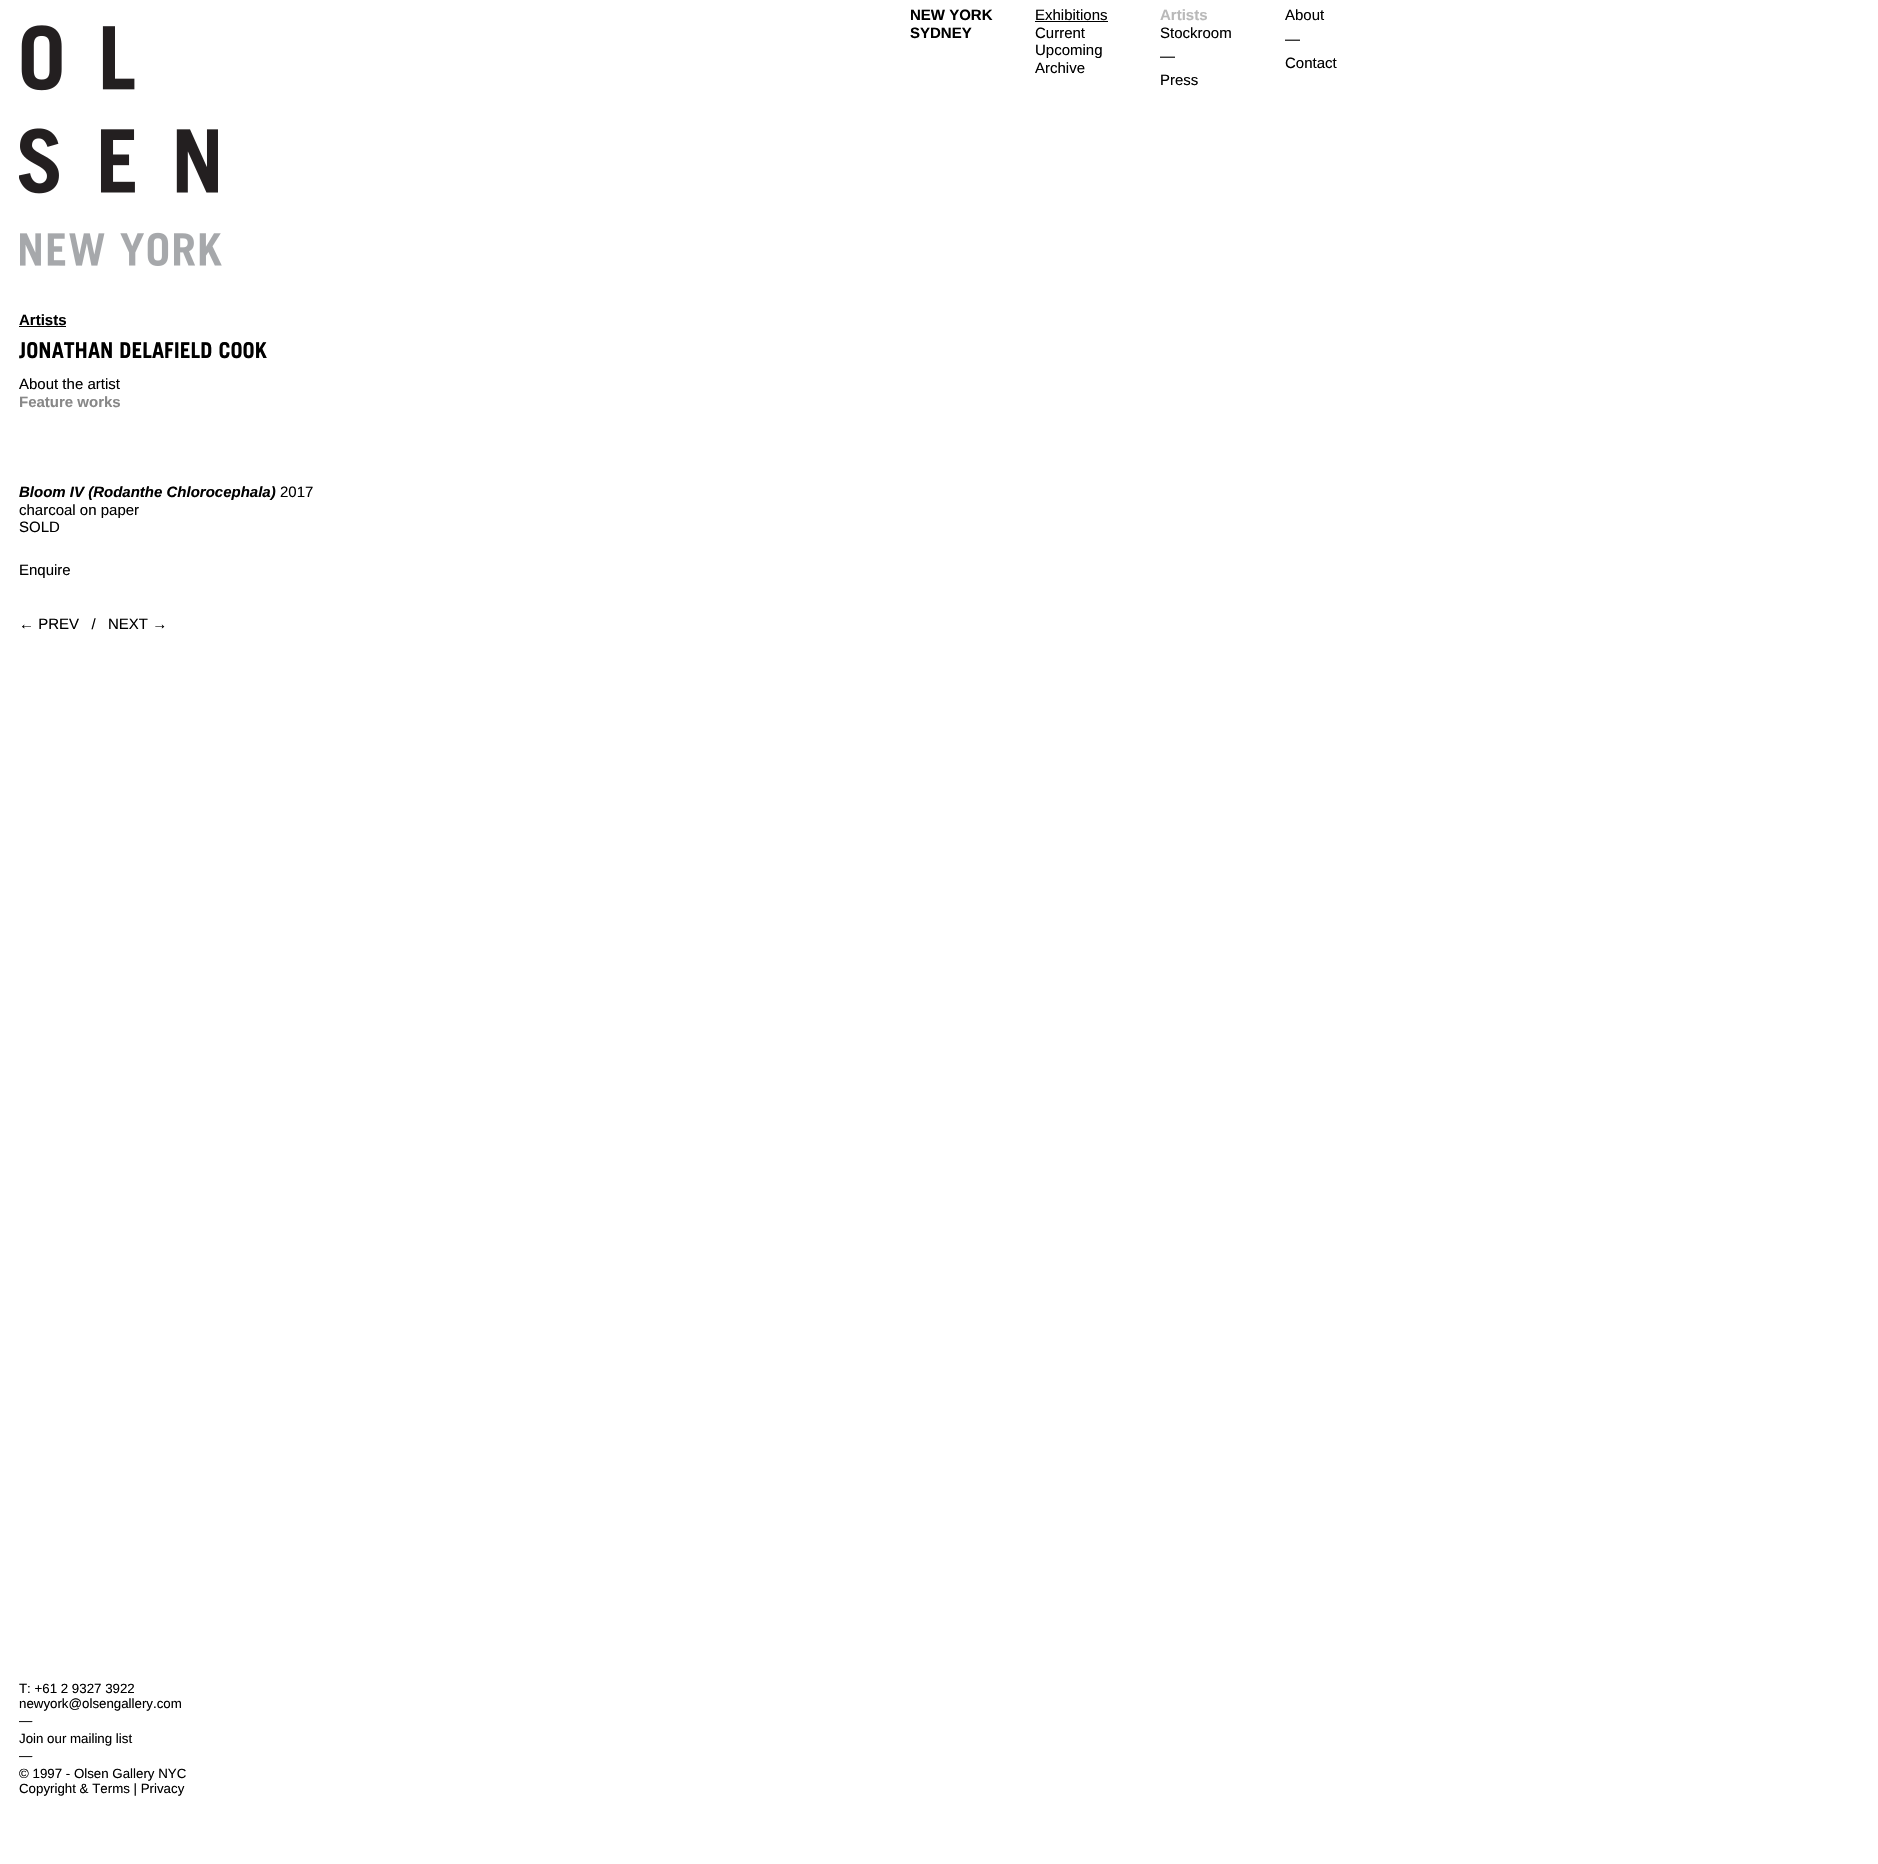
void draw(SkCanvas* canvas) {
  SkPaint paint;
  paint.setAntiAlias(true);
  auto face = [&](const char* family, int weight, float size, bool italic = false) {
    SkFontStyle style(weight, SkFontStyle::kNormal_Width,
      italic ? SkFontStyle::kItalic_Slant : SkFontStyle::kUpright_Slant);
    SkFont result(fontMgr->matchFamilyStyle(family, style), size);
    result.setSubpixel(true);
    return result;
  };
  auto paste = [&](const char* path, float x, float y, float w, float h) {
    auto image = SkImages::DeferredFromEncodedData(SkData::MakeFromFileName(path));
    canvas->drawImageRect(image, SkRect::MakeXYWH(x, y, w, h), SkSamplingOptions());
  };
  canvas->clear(0xffffffff);
  paste("img/1.png", 19, 25, 203, 241);
  paint.setColor(0xff000000);
  canvas->drawRect(SkRect::MakeXYWH(1035, 21, 73, 1), paint);
  canvas->drawRect(SkRect::MakeXYWH(19, 326, 47, 1), paint);
  auto f0 = face("Liberation Sans", 700, 15);
  canvas->drawString("NEW YORK", 910, 20, f0, paint);
  canvas->drawString("SYDNEY", 910, 38, f0, paint);
  auto f1 = face("Liberation Sans", 400, 15);
  {
    const struct { const char* s; float x, y; } items[] = {
      {"Exhibitions", 1035, 20},
      {"Current", 1035, 38},
      {"Upcoming", 1035, 55},
      {"Archive", 1035, 73},
    };
    for (auto [s, x, y] : items) {
      canvas->drawString(s, x, y, f1, paint);
    }
  }
  paint.setColor(0xffb9b9b9);
  canvas->drawString("Artists", 1160, 20, f0, paint);
  paint.setColor(0xff000000);
  {
    const struct { const char* s; float x, y; } items[] = {
      {"Stockroom", 1160, 38},
      {"—", 1160, 61},
      {"Press", 1160, 85},
      {"About", 1285, 20},
      {"—", 1285, 44},
      {"Contact", 1285, 68},
    };
    for (auto [s, x, y] : items) {
      canvas->drawString(s, x, y, f1, paint);
    }
  }
  canvas->drawString("Artists", 19, 325, f0, paint);
  auto f2 = face("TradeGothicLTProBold", 400, 21.75f);
  canvas->drawString("JONATHAN DELAFIELD COOK", 19, 358, f2, paint);
  canvas->drawString("About the artist", 19, 389, f1, paint);
  paint.setColor(0xff888888);
  canvas->drawString("Feature works", 19, 407, f0, paint);
  auto f3 = face("Liberation Sans", 700, 15, true);
  paint.setColor(0xff000000);
  canvas->drawString("Bloom IV (Rodanthe Chlorocephala)", 19, 497, f3, paint);
  {
    const struct { const char* s; float x, y; } items[] = {
      {"2017", 280, 497},
      {"charcoal on paper", 19, 515},
      {"SOLD", 19, 532},
      {"Enquire", 19, 575},
      {"← PREV   /", 19, 629},
      {"NEXT →", 108, 629},
    };
    for (auto [s, x, y] : items) {
      canvas->drawString(s, x, y, f1, paint);
    }
  }
  auto f4 = face("Liberation Sans", 400, 13.3f);
  {
    const struct { const char* s; float x, y; } items[] = {
      {"T: +61 2 9327 3922", 19, 1693},
      {"newyork@olsengallery.com", 19, 1708},
      {"—", 19, 1725},
      {"Join our mailing list", 19, 1743},
      {"—", 19, 1760},
      {"© 1997 - Olsen Gallery NYC", 19, 1778},
      {"Copyright & Terms | Privacy", 19, 1793},
    };
    for (auto [s, x, y] : items) {
      canvas->drawString(s, x, y, f4, paint);
    }
  }
}
